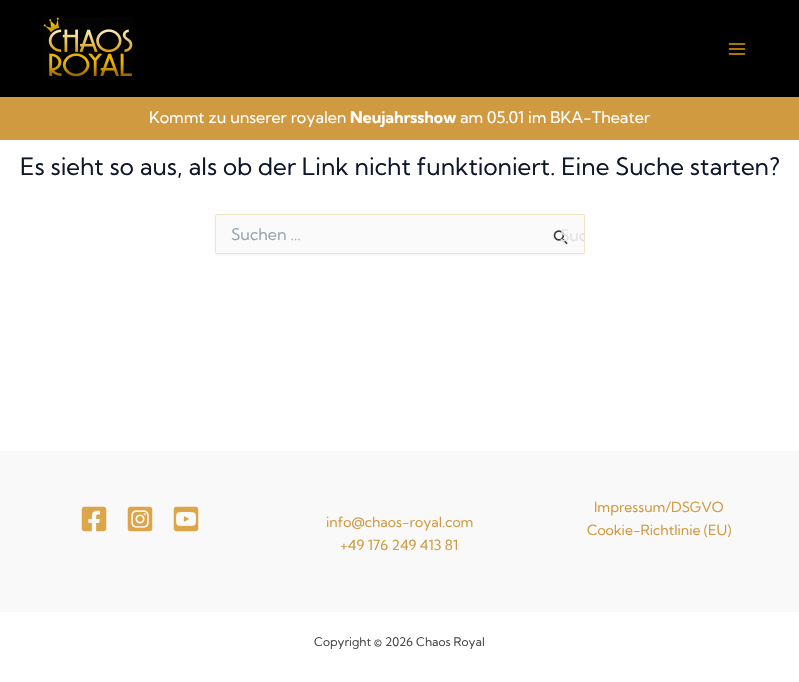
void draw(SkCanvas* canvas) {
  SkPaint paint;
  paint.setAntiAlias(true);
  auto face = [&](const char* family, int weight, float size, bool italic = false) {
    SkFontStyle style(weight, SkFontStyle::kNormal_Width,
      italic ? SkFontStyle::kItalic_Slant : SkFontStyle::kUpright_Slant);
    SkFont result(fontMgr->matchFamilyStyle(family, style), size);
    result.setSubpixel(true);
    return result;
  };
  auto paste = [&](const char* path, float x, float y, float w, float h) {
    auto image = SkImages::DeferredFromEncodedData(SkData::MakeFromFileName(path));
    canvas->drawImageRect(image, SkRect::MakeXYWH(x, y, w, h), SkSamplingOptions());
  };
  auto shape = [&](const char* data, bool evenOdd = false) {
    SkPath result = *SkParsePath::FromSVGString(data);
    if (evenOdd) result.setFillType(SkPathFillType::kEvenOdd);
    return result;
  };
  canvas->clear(0xffffffff);
  paint.setColor(0xff000000);
  canvas->drawRect(SkRect::MakeXYWH(0, 0, 799, 97), paint);
  paste("img/1.png", 43, 17, 90, 60);
  paste("img/2.png", 728, 43, 18, 12);
  paint.setColor(0xffd09a40);
  canvas->drawRect(SkRect::MakeXYWH(0, 97, 799, 43), paint);
  paint.setColor(0x0d000000);
  paint.setMaskFilter(SkMaskFilter::MakeBlur(kNormal_SkBlurStyle, 1));
  canvas->drawRoundRect(SkRect::MakeXYWH(215, 215, 370, 40), 2, 2, paint);
  paint.setMaskFilter(nullptr);
  paint.setColor(0xfffafafa);
  canvas->drawRoundRect(SkRect::MakeXYWH(215.5f, 214.5f, 369, 39), 1.5f, 1.5f, paint);
  paint.setStroke(true);
  paint.setStrokeWidth(1);
  paint.setColor(0xfff0e6c5);
  canvas->drawRoundRect(SkRect::MakeXYWH(215.5f, 214.5f, 369, 39), 1.5f, 1.5f, paint);
  paste("img/3.png", 553, 230, 15, 15);
  paint.setStroke(false);
  paint.setColor(0xfff9f9f9);
  canvas->drawRect(SkRect::MakeXYWH(0, 451, 799, 161), paint);
  paste("img/4.png", 81, 506, 26, 26);
  paste("img/5.png", 127, 506, 26, 26);
  paste("img/6.png", 173, 506, 26, 26);
  auto f0 = face("Kumbh Sans", 400, 16);
  paint.setColor(0xffffffff);
  canvas->drawString("Kommt zu unserer royalen", 149, 123, f0, paint);
  auto f1 = face("Kumbh Sans", 700, 16);
  canvas->drawString("Neujahrsshow", 350, 123, f1, paint);
  canvas->drawString("am 05.01 im BKA-Theater", 460, 123, f0, paint);
  auto f2 = face("Kumbh Sans", 400, 24);
  paint.setColor(0xff0f172a);
  canvas->drawString("Es sieht so aus, als ob der Link nicht funktioniert. Eine Suche starten?", 20, 175, f2, paint);
  paint.setColor(0xff9ca3af);
  canvas->drawString("Suchen …", 231, 240, f0, paint);
  canvas->save();
  canvas->clipPath(shape("M542 214H583C584 214 585 215 585 216V254C585 255 584 256 583 256H542C541 256 540 255 540 254V216C540 215 541 214 542 214Z"), true);
  paint.setColor(0xffe2e1e0);
  canvas->drawString("Suc", 560, 241, f0, paint);
  canvas->restore();
  auto f3 = face("Kumbh Sans", 400, 14);
  paint.setColor(0xffd09a40);
  {
    const struct { const char* s; float x, y; } items[] = {
      {"info@chaos-royal.com", 326, 527},
      {"+49 176 249 413 81", 340, 550},
      {"Impressum/DSGVO", 594, 512},
      {"Cookie-Richtlinie (EU)", 587, 535},
    };
    for (auto [s, x, y] : items) {
      canvas->drawString(s, x, y, f3, paint);
    }
  }
  auto f4 = face("Kumbh Sans", 400, 12);
  paint.setColor(0xff4a4a4a);
  canvas->drawString("Copyright © 2026 Chaos Royal", 314, 646, f4, paint);
}
